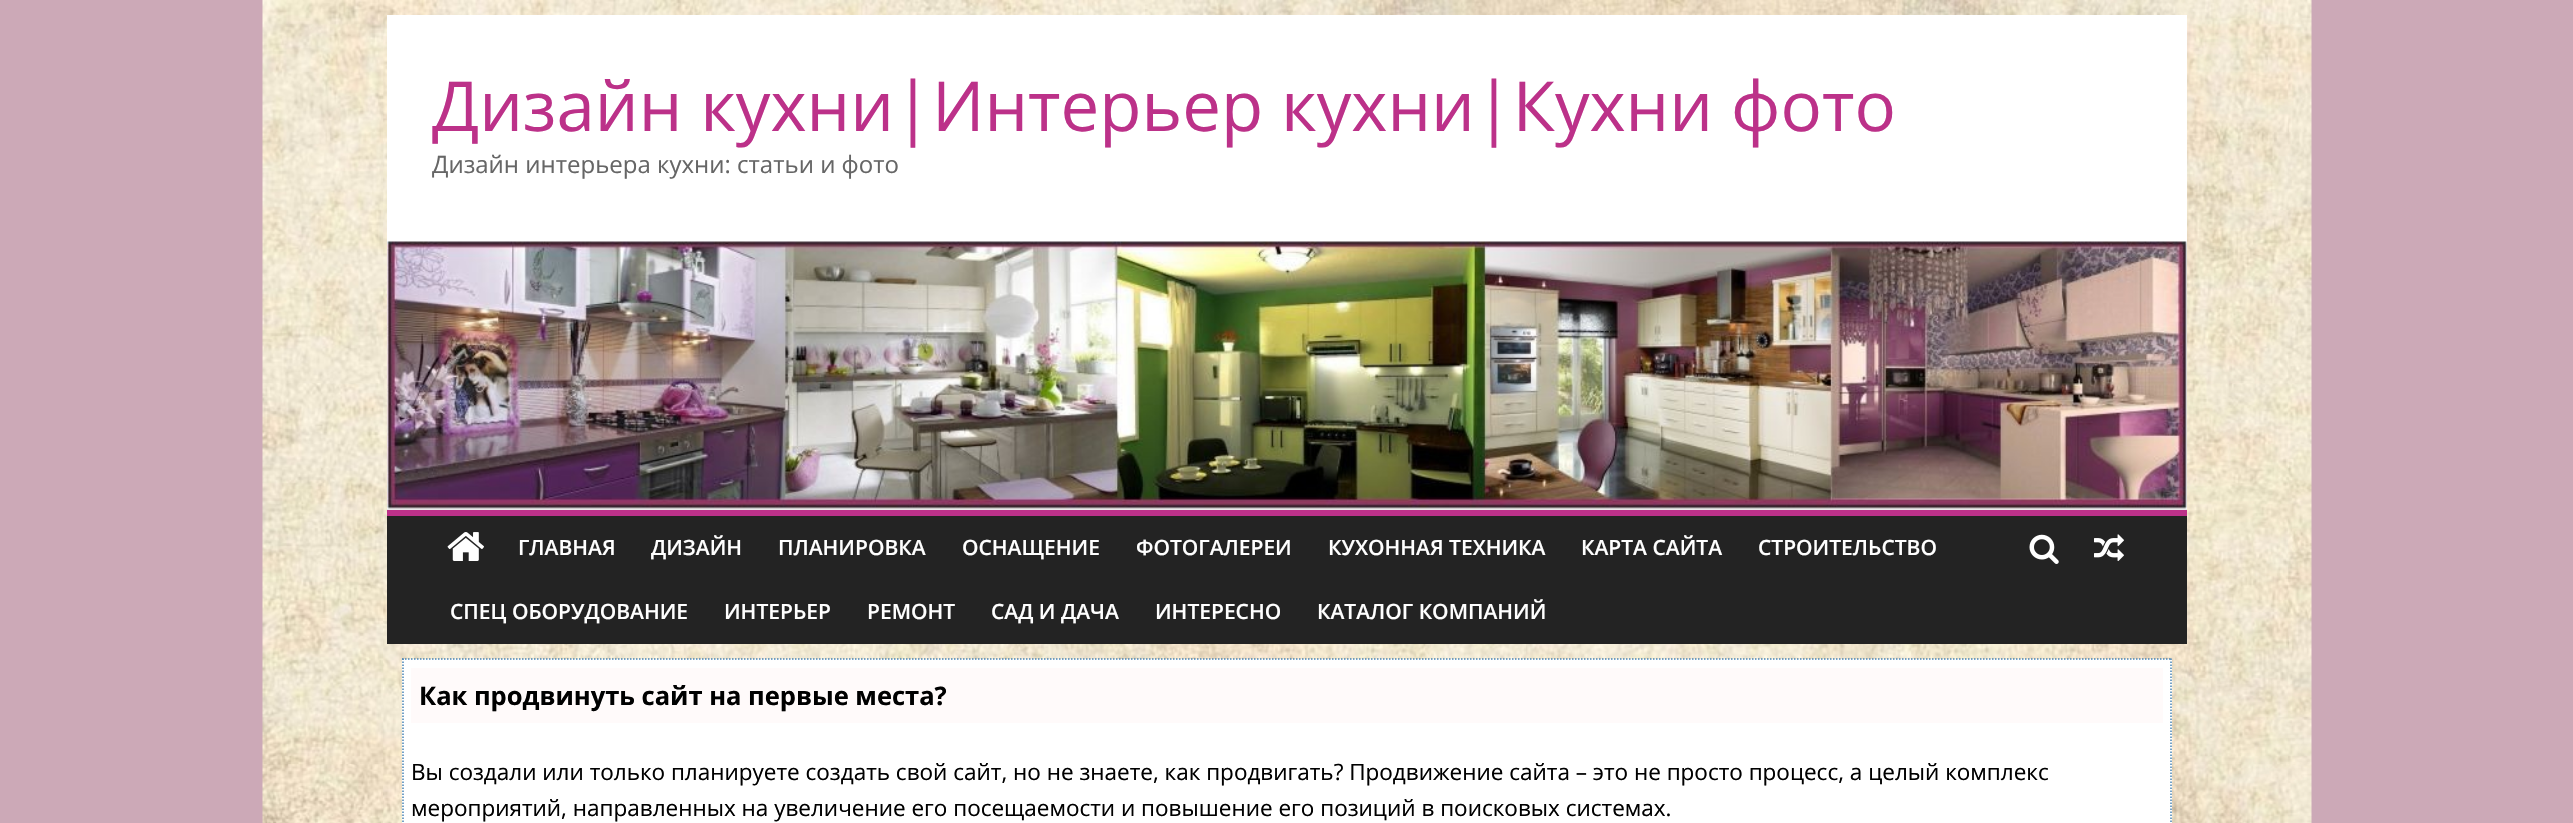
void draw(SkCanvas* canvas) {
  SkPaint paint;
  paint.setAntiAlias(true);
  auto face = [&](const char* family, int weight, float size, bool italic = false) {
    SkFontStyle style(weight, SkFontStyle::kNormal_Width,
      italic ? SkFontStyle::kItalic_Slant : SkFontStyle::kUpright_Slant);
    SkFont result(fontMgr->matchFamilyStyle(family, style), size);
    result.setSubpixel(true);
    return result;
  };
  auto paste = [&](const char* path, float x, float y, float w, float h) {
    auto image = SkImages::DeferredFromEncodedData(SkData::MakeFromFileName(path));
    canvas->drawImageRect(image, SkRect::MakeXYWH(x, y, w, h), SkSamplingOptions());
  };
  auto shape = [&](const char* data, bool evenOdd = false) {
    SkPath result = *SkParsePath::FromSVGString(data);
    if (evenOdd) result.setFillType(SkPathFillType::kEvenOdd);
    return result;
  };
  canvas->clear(0xffcca9b7);
  paste("img/1.png", 262, 0, 2050, 823);
  paint.setColor(0xffffffff);
  canvas->drawRect(SkRect::MakeXYWH(387, 15, 1800, 494), paint);
  paste("img/2.png", 387, 241, 1800, 268);
  {
    const struct { float x, y, w, h; SkColor color; } items[] = {
      {387, 509, 1800, 1, 0xffeaeaea},
      {387, 516, 1800, 128, 0xff232323},
      {387, 510, 1800, 6, 0xffbc3189},
    };
    for (auto [x, y, w, h, color] : items) {
      paint.setColor(color);
      canvas->drawRect(SkRect::MakeXYWH(x, y, w, h), paint);
    }
  }
  paste("img/3.png", 447, 532, 37, 29);
  paste("img/4.png", 2029, 534, 30, 30);
  paste("img/5.png", 2094, 534, 30, 27);
  paint.setColor(0xffffffff);
  canvas->drawRect(SkRect::MakeXYWH(402, 659, 1770, 164), paint);
  paint.setStroke(true);
  paint.setStrokeWidth(1.5f);
  paint.setColor(0xff4682b4);
  paint.setPathEffect(SkDashPathEffect::Make({{1.5f, 1.5f}}, 0));
  canvas->drawPath(shape("M402 659H2172"), paint);
  paint.setPathEffect(nullptr);
  paint.setPathEffect(SkDashPathEffect::Make({{1.5f, 1.5f}}, 0));
  canvas->drawPath(shape("M2171 658.5V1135.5"), paint);
  paint.setPathEffect(nullptr);
  paint.setPathEffect(SkDashPathEffect::Make({{1.5f, 1.5f}}, 0));
  canvas->drawPath(shape("M403 658.5V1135.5"), paint);
  paint.setPathEffect(nullptr);
  paint.setStroke(false);
  paint.setColor(0xfffffafa);
  canvas->drawRect(SkRect::MakeXYWH(411, 668, 1752, 55), paint);
  auto f0 = face("Open Sans", 400, 69);
  paint.setColor(0xffbc3189);
  canvas->drawString("Дизайн кухни|Интерьер кухни|Кухни фото", 432, 131, f0, paint);
  auto f1 = face("Open Sans", 400, 24);
  paint.setColor(0xff666666);
  canvas->drawString("Дизайн интерьера кухни: статьи и фото", 432, 173, f1, paint);
  auto f2 = face("Open Sans", 600, 21);
  paint.setColor(0xffffffff);
  {
    const struct { const char* s; float x, y; } items[] = {
      {"ГЛАВНАЯ", 518, 555},
      {"ДИЗАЙН", 651, 555},
      {"ПЛАНИРОВКА", 778, 555},
      {"ОСНАЩЕНИЕ", 962, 555},
      {"ФОТОГАЛЕРЕИ", 1136, 555},
      {"КУХОННАЯ ТЕХНИКА", 1328, 555},
      {"КАРТА САЙТА", 1581, 555},
      {"СТРОИТЕЛЬСТВО", 1758, 555},
      {"СПЕЦ ОБОРУДОВАНИЕ", 450, 619},
      {"ИНТЕРЬЕР", 724, 619},
      {"РЕМОНТ", 867, 619},
      {"САД И ДАЧА", 991, 619},
      {"ИНТЕРЕСНО", 1155, 619},
      {"КАТАЛОГ КОМПАНИЙ", 1317, 619},
    };
    for (auto [s, x, y] : items) {
      canvas->drawString(s, x, y, f2, paint);
    }
  }
  auto f3 = face("Open Sans", 700, 25.5f);
  paint.setColor(0xff000000);
  canvas->drawString("Как продвинуть сайт на первые места?", 419, 705, f3, paint);
  auto f4 = face("Open Sans", 400, 22.5f);
  canvas->drawString("Вы создали или только планируете создать свой сайт, но не знаете, как продвигать? Продвижение сайта – это не просто процесс, а целый комплекс", 411, 780, f4, paint);
  canvas->drawString("мероприятий, направленных на увеличение его посещаемости и повышение его позиций в поисковых системах.", 411, 816, f4, paint);
}
